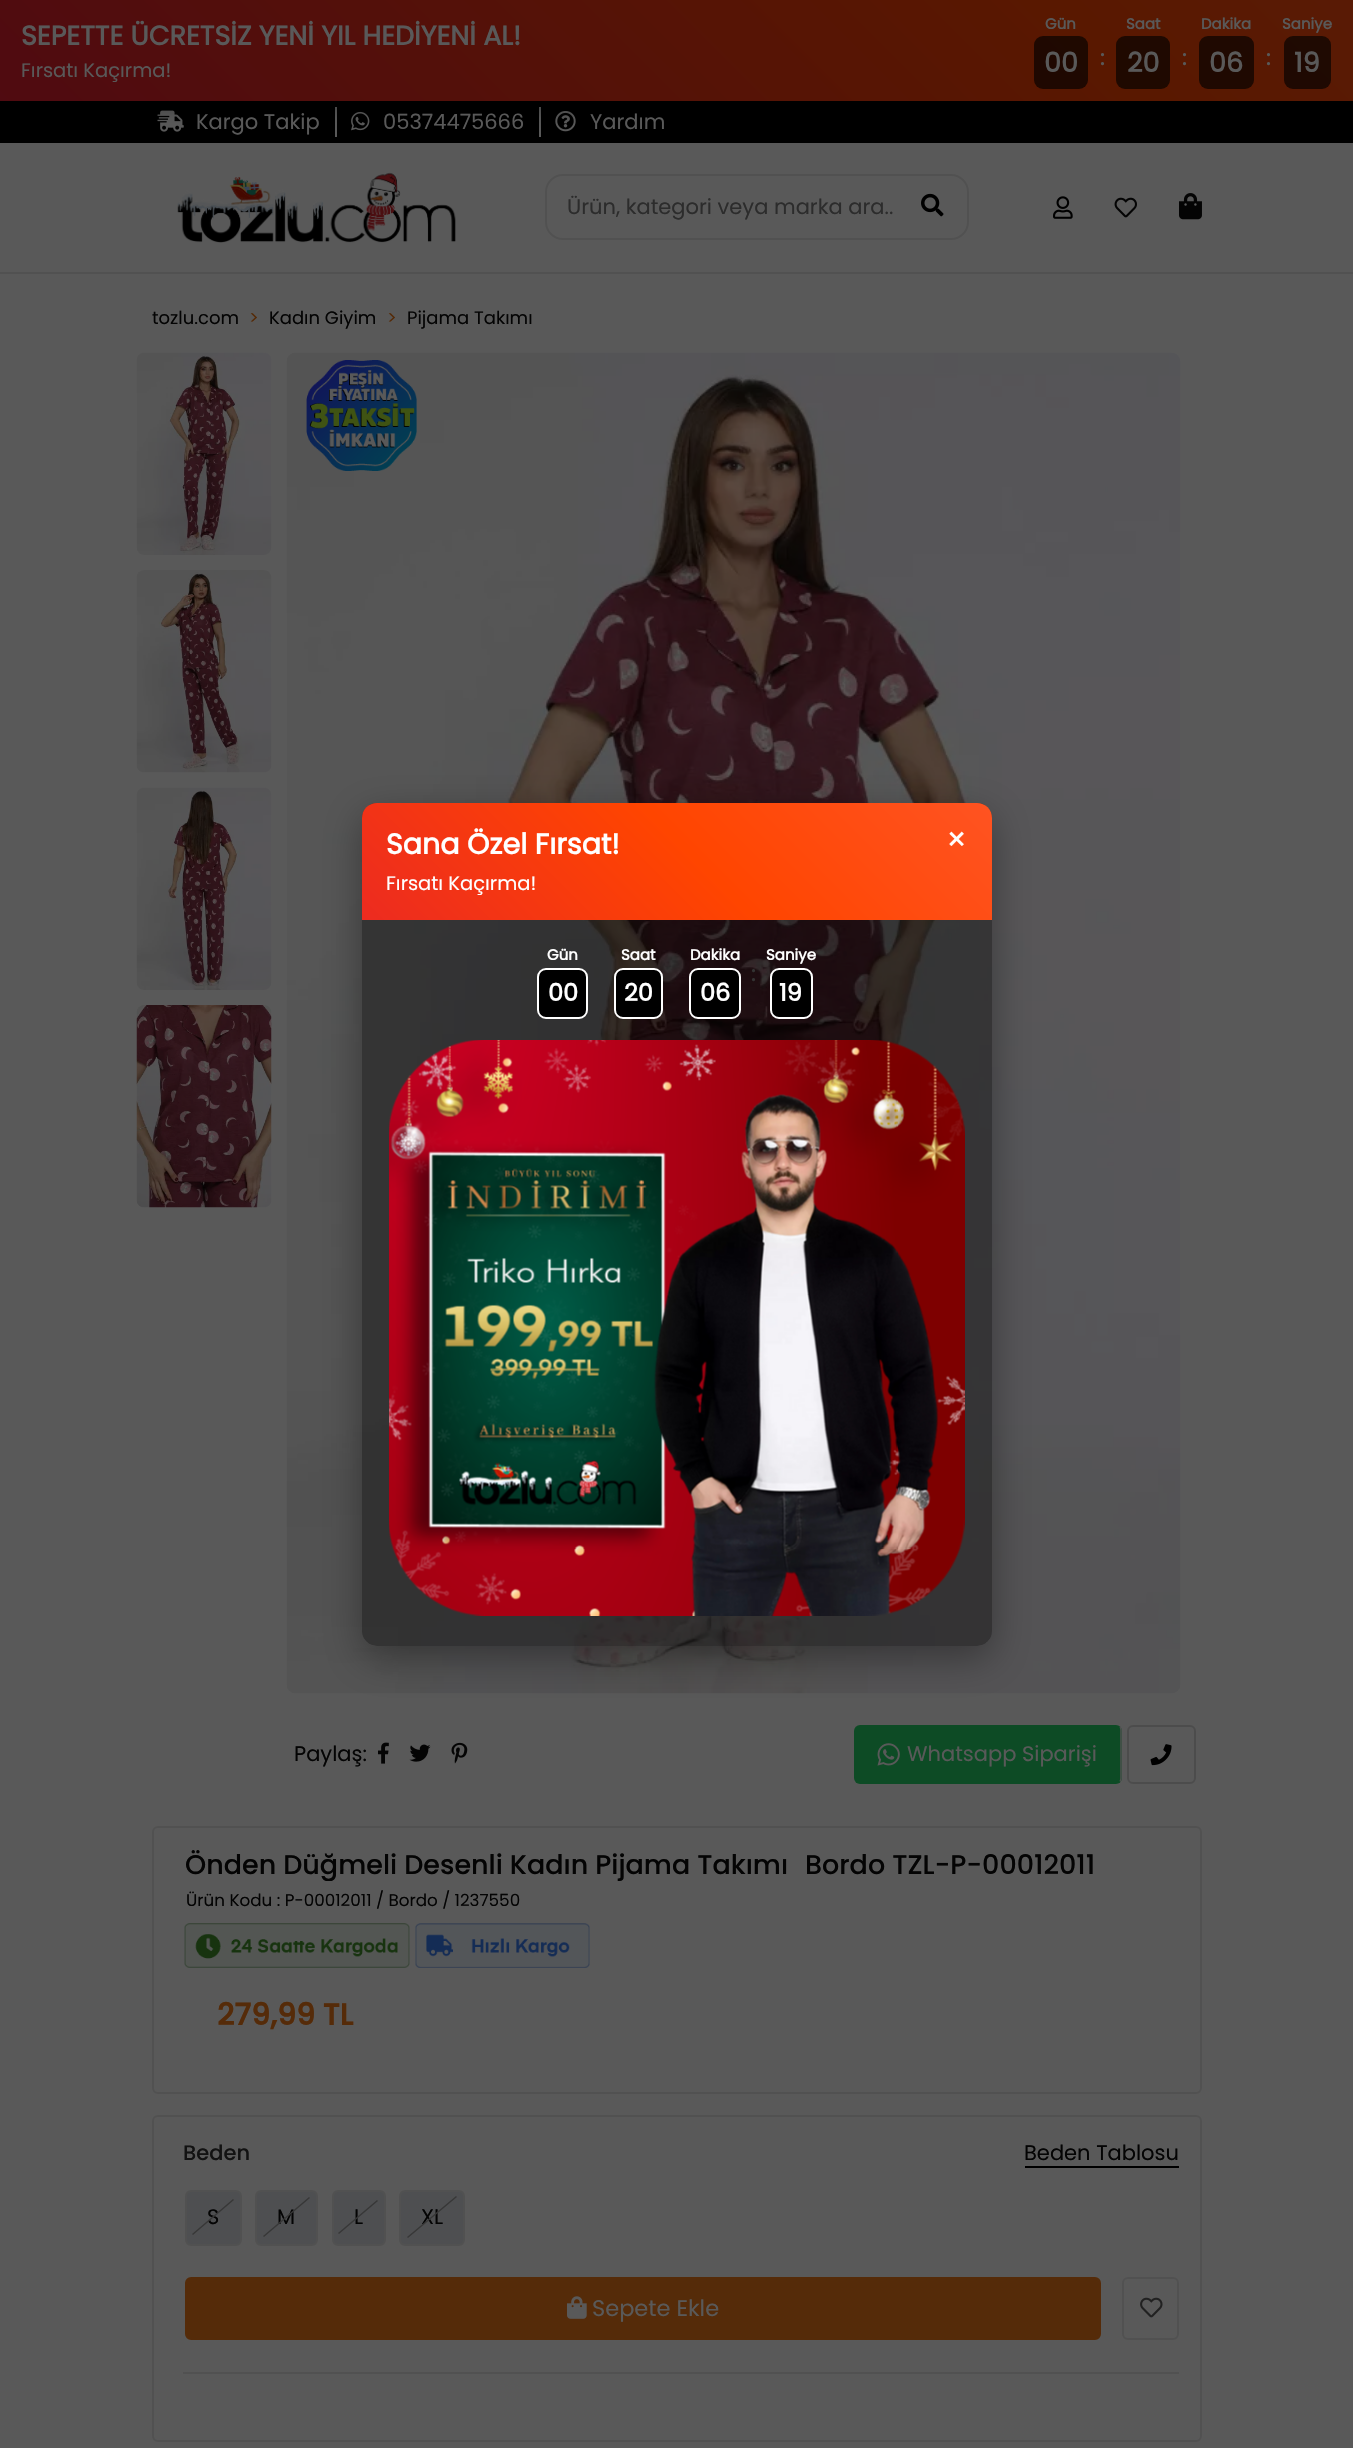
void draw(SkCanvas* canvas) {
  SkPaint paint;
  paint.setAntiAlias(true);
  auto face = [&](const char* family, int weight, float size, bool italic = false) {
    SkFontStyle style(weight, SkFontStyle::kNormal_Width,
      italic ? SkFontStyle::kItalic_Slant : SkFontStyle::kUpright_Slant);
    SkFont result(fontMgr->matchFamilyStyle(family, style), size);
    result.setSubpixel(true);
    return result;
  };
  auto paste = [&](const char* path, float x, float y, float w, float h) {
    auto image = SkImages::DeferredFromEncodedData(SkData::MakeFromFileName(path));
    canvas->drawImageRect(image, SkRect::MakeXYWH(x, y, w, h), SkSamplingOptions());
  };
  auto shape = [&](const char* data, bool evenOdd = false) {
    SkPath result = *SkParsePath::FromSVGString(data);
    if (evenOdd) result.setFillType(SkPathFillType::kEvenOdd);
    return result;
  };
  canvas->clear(0xff595959);
  paint.setColor(0xff000000);
  canvas->drawRect(SkRect::MakeXYWH(0, 101, 1353, 42), paint);
  paste("img/1.png", 157, 110, 27, 22);
  paint.setColor(0xff595959);
  canvas->drawRect(SkRect::MakeXYWH(335, 107, 2, 30), paint);
  paste("img/2.png", 351, 111, 19, 20);
  canvas->drawRect(SkRect::MakeXYWH(539, 107, 2, 30), paint);
  paste("img/3.png", 555, 111, 21, 21);
  paint.setColor(0x59000000);
  paint.setMaskFilter(SkMaskFilter::MakeBlur(kNormal_SkBlurStyle, 9));
  canvas->drawRect(SkRect::MakeXYWH(0, 6, 1353, 101), paint);
  paint.setMaskFilter(nullptr);
  {
    const SkColor colors[] = {0xff4d0715, 0xff591800, 0xff592319, 0xff593100, 0xff4d0715};
    const float stops[] = {0, 0.25f, 0.5f, 0.75f, 1};
    const SkPoint ends[] = {{1253, 1655}, {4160, -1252}};
    paint.setShader(SkGradientShader::MakeLinear(ends, colors, stops, 5, SkTileMode::kClamp));
    paint.setAlpha(255);
  }
  canvas->drawRect(SkRect::MakeXYWH(0, 0, 1353, 101), paint);
  paint.setShader(nullptr);
  paint.setColor(0xa6000000);
  canvas->drawRoundRect(SkRect::MakeXYWH(1034, 36, 54, 53), 9, 9, paint);
  canvas->drawRoundRect(SkRect::MakeXYWH(1116, 36, 54, 53), 9, 9, paint);
  canvas->drawRoundRect(SkRect::MakeXYWH(1199, 36, 55, 53), 9, 9, paint);
  canvas->drawRoundRect(SkRect::MakeXYWH(1284, 36, 47, 53), 9, 9, paint);
  paint.setColor(0xff515151);
  canvas->drawRect(SkRect::MakeXYWH(0, 272, 1353, 2), paint);
  paste("img/4.png", 177, 172, 279, 71);
  paint.setStroke(true);
  paint.setStrokeWidth(2);
  canvas->drawRoundRect(SkRect::MakeXYWH(546, 175, 422, 64), 17, 17, paint);
  paste("img/5.png", 921, 193, 23, 24);
  paste("img/6.png", 1053, 196, 20, 23);
  paste("img/7.png", 1114, 197, 23, 21);
  paste("img/8.png", 1179, 193, 23, 27);
  paste("img/9.png", 136, 352, 136, 203);
  paste("img/10.png", 136, 570, 136, 203);
  paste("img/11.png", 136, 787, 136, 203);
  paste("img/12.png", 136, 1005, 136, 203);
  paste("img/13.png", 286, 352, 895, 1342);
  paste("img/14.png", 306, 360, 111, 111);
  paste("img/15.png", 378, 1742, 11, 22);
  paste("img/16.png", 409, 1744, 22, 18);
  paste("img/17.png", 451, 1742, 17, 22);
  paint.setStroke(false);
  paint.setColor(0xff0d4b25);
  canvas->drawRoundRect(SkRect::MakeXYWH(854, 1725, 268, 59), 6, 6, paint);
  paint.setStroke(true);
  paint.setStrokeWidth(1.5f);
  paint.setColor(0xff515151);
  canvas->drawPath(shape("M1120 1727C1121 1728 1121 1729 1121 1730V1778C1121 1779.5 1121 1780.5 1120 1781.5"), paint);
  paste("img/18.png", 877, 1743, 23, 23);
  paint.setStrokeWidth(2);
  paint.setColor(0xff4c4c4c);
  canvas->drawRoundRect(SkRect::MakeXYWH(1128, 1726, 67, 57), 5, 5, paint);
  paste("img/19.png", 1150, 1744, 22, 22);
  paint.setColor(0xff515151);
  canvas->drawRoundRect(SkRect::MakeXYWH(153, 1827, 1048, 266), 5, 5, paint);
  paste("img/20.png", 184, 1923, 226, 45);
  paste("img/21.png", 415, 1923, 175, 45);
  canvas->drawRoundRect(SkRect::MakeXYWH(153, 2116, 1048, 325), 5, 5, paint);
  paint.setStroke(false);
  paint.setColor(0xff4e4f51);
  canvas->drawRoundRect(SkRect::MakeXYWH(186, 2191, 55, 54), 5, 5, paint);
  paint.setStroke(true);
  paint.setColor(0xff515151);
  canvas->drawRoundRect(SkRect::MakeXYWH(186, 2191, 55, 54), 5, 5, paint);
  paint.setStroke(false);
  paint.setColor(0xff4e4f51);
  canvas->drawRoundRect(SkRect::MakeXYWH(256, 2191, 61, 54), 5, 5, paint);
  paint.setStroke(true);
  paint.setColor(0xff515151);
  canvas->drawRoundRect(SkRect::MakeXYWH(256, 2191, 61, 54), 5, 5, paint);
  paint.setStroke(false);
  paint.setColor(0xff4e4f51);
  canvas->drawRoundRect(SkRect::MakeXYWH(333, 2191, 52, 54), 5, 5, paint);
  paint.setStroke(true);
  paint.setColor(0xff515151);
  canvas->drawRoundRect(SkRect::MakeXYWH(333, 2191, 52, 54), 5, 5, paint);
  paint.setStroke(false);
  paint.setColor(0xff4e4f51);
  canvas->drawRoundRect(SkRect::MakeXYWH(400, 2191, 64, 54), 5, 5, paint);
  paint.setStroke(true);
  paint.setColor(0xff515151);
  canvas->drawRoundRect(SkRect::MakeXYWH(400, 2191, 64, 54), 5, 5, paint);
  paint.setStroke(false);
  paint.setColor(0xff000000);
  canvas->drawRect(SkRect::MakeXYWH(1025, 2166, 154, 2), paint);
  paint.setColor(0xff552b09);
  canvas->drawRoundRect(SkRect::MakeXYWH(186, 2278, 914, 61), 5, 5, paint);
  paint.setStroke(true);
  canvas->drawRoundRect(SkRect::MakeXYWH(186, 2278, 914, 61), 5, 5, paint);
  paste("img/22.png", 567, 2296, 20, 23);
  paint.setColor(0xff515151);
  canvas->drawRoundRect(SkRect::MakeXYWH(1123, 2278, 55, 61), 5, 5, paint);
  paste("img/23.png", 1140, 2297, 23, 21);
  paint.setStroke(false);
  canvas->drawRect(SkRect::MakeXYWH(183, 2372, 996, 2), paint);
  canvas->save();
  canvas->clipPath(shape("M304 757H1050V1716H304ZM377 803H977C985.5 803 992 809.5 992 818V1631C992 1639.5 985.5 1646 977 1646H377C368.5 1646 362 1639.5 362 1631V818C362 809.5 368.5 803 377 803Z", true), true);
  paint.setColor(0x59000000);
  paint.setMaskFilter(SkMaskFilter::MakeBlur(kNormal_SkBlurStyle, 19));
  canvas->drawRoundRect(SkRect::MakeXYWH(362, 815, 630, 843), 15, 15, paint);
  paint.setMaskFilter(nullptr);
  canvas->restore();
  paint.setColor(0x63000000);
  canvas->drawRoundRect(SkRect::MakeXYWH(362, 803, 630, 843), 15, 15, paint);
  {
    const SkColor colors[] = {0xffdc143c, 0xffff4500, 0xffff6347, 0xffff8c00, 0xffdc143c};
    const float stops[] = {0, 0.25f, 0.5f, 0.75f, 1};
    const SkPoint ends[] = {{875, 1784}, {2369, 290}};
    paint.setShader(SkGradientShader::MakeLinear(ends, colors, stops, 5, SkTileMode::kClamp));
    paint.setAlpha(255);
  }
  canvas->drawPath(shape("M377 803H977C985.5 803 992 809.5 992 818V920H362V818C362 809.5 368.5 803 377 803Z"), paint);
  paint.setShader(nullptr);
  paint.setColor(0xff000000);
  canvas->drawRoundRect(SkRect::MakeXYWH(538, 969, 49, 49), 8, 8, paint);
  paint.setStroke(true);
  paint.setColor(0xffffffff);
  canvas->drawRoundRect(SkRect::MakeXYWH(538, 969, 49, 49), 8, 8, paint);
  paint.setStroke(false);
  paint.setColor(0xff000000);
  canvas->drawRoundRect(SkRect::MakeXYWH(615, 969, 47, 49), 8, 8, paint);
  paint.setStroke(true);
  paint.setColor(0xffffffff);
  canvas->drawRoundRect(SkRect::MakeXYWH(615, 969, 47, 49), 8, 8, paint);
  paint.setStroke(false);
  paint.setColor(0xff000000);
  canvas->drawRoundRect(SkRect::MakeXYWH(690, 969, 50, 49), 8, 8, paint);
  paint.setStroke(true);
  paint.setColor(0xffffffff);
  canvas->drawRoundRect(SkRect::MakeXYWH(690, 969, 50, 49), 8, 8, paint);
  paint.setStroke(false);
  paint.setColor(0xff000000);
  canvas->drawRoundRect(SkRect::MakeXYWH(771, 969, 41, 49), 8, 8, paint);
  paint.setStroke(true);
  paint.setColor(0xffffffff);
  canvas->drawRoundRect(SkRect::MakeXYWH(771, 969, 41, 49), 8, 8, paint);
  paste("img/24.png", 389, 1040, 576, 576);
  auto f0 = face("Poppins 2", 700, 27);
  paint.setStroke(false);
  paint.setColor(0xff595959);
  canvas->drawString("SEPETTE ÜCRETSİZ YENİ YIL HEDİYENİ AL!", 21, 45, f0, paint);
  auto f1 = face("Poppins", 400, 19.5f);
  canvas->drawString("Fırsatı Kaçırma!", 21, 77, f1, paint);
  auto f2 = face("Poppins 2", 700, 15);
  canvas->drawString("Gün", 1045, 29, f2, paint);
  canvas->drawString("00", 1044, 72, f0, paint);
  auto f3 = face("Poppins 2", 700, 21);
  canvas->drawString(":", 1100, 65, f3, paint);
  canvas->drawString("Saat", 1126, 29, f2, paint);
  canvas->drawString("20", 1127, 72, f0, paint);
  canvas->drawString(":", 1182, 65, f3, paint);
  canvas->drawString("Dakika", 1201, 29, f2, paint);
  canvas->drawString("06", 1209, 72, f0, paint);
  canvas->drawString(":", 1266, 65, f3, paint);
  canvas->drawString("Saniye", 1282, 29, f2, paint);
  canvas->drawString("19", 1294, 72, f0, paint);
  auto f4 = face("Poppins", 400, 21);
  {
    const struct { const char* s; float x, y; } items[] = {
      {"Kargo Takip", 196, 129},
      {"05374475666", 383, 129},
      {"Yardım", 590, 129},
    };
    for (auto [s, x, y] : items) {
      canvas->drawString(s, x, y, f4, paint);
    }
  }
  paint.setColor(0xff2c2c2c);
  canvas->drawString("Ürün, kategori veya marka ara..", 567, 214, f4, paint);
  auto f5 = face("Poppins", 400, 18);
  paint.setColor(0xff040404);
  canvas->drawString("tozlu.com", 152, 324, f5, paint);
  paint.setColor(0xff552b09);
  canvas->drawString(">", 249, 324, f5, paint);
  paint.setColor(0xff040404);
  canvas->drawString("Kadın Giyim", 269, 324, f5, paint);
  paint.setColor(0xff552b09);
  canvas->drawString(">", 387, 324, f5, paint);
  paint.setColor(0xff040404);
  canvas->drawString("Pijama Takımı", 407, 324, f5, paint);
  canvas->drawString("Paylaş:", 294, 1761, f4, paint);
  paint.setColor(0xff595959);
  canvas->drawString("Whatsapp Siparişi", 907, 1761, f4, paint);
  canvas->save();
  canvas->clipRect(SkRect::MakeXYWH(174, 1848, 1005, 33));
  auto f6 = face("Poppins", 500, 27);
  paint.setColor(0xff040404);
  canvas->drawString("Önden Düğmeli Desenli Kadın Pijama Takımı", 185, 1874, f6, paint);
  canvas->restore();
  canvas->drawString("Bordo TZL-P-00012011", 805, 1874, f6, paint);
  auto f7 = face("Poppins", 400, 16.75f);
  canvas->drawString("Ürün Kodu : P-00012011 / Bordo / 1237550", 186, 1906, f7, paint);
  auto f8 = face("Poppins", 700, 30);
  paint.setColor(0xff552b09);
  canvas->drawString("279,99 TL", 217, 2025, f8, paint);
  auto f9 = face("Poppins", 500, 21);
  paint.setColor(0xff121212);
  canvas->drawString("Beden", 183, 2160, f9, paint);
  paint.setColor(0xff040404);
  canvas->drawString("S", 207, 2224, f4, paint);
  paint.setColor(0xff373737);
  canvas->drawPath(shape("M192 2234L233 2199L234 2200L193 2235Z"), paint);
  paint.setColor(0xff040404);
  canvas->drawString("M", 277, 2224, f4, paint);
  paint.setColor(0xff373737);
  canvas->drawPath(shape("M263 2236L309 2197L310 2198L264 2237Z"), paint);
  paint.setColor(0xff040404);
  canvas->drawString("L", 354, 2224, f4, paint);
  paint.setColor(0xff373737);
  canvas->drawPath(shape("M338 2233L377 2200L378 2201L339 2234Z"), paint);
  paint.setColor(0xff040404);
  canvas->drawString("XL", 421, 2224, f4, paint);
  paint.setColor(0xff373737);
  canvas->drawPath(shape("M407 2237L456 2196L457 2197L408 2238Z"), paint);
  paint.setColor(0xff040404);
  canvas->drawString("Beden Tablosu", 1024, 2160, f4, paint);
  auto f10 = face("Poppins", 400, 22.5f);
  paint.setColor(0xff595959);
  canvas->drawString("Sepete Ekle", 592, 2316, f10, paint);
  auto f11 = face("Poppins 2", 700, 28.5f);
  paint.setColor(0xffffffff);
  canvas->drawString("Sana Özel Fırsat!", 386, 854, f11, paint);
  auto f12 = face("Poppins", 400, 33);
  canvas->drawString("×", 946, 851, f12, paint);
  canvas->drawString("Fırsatı Kaçırma!", 386, 890, f1, paint);
  canvas->drawString("Gün", 547, 960, f2, paint);
  auto f13 = face("Poppins 2", 700, 24);
  canvas->drawString("00", 548, 1001, f13, paint);
  canvas->drawString("Saat", 621, 960, f2, paint);
  canvas->drawString("20", 624, 1001, f13, paint);
  canvas->drawString("Dakika", 690, 960, f2, paint);
  canvas->drawString("06", 700, 1001, f13, paint);
  paint.setColor(0xff333333);
  canvas->drawString(":", 751, 981, f3, paint);
  paint.setColor(0xffffffff);
  canvas->drawString("Saniye", 766, 960, f2, paint);
  canvas->drawString("19", 779, 1001, f13, paint);
}
